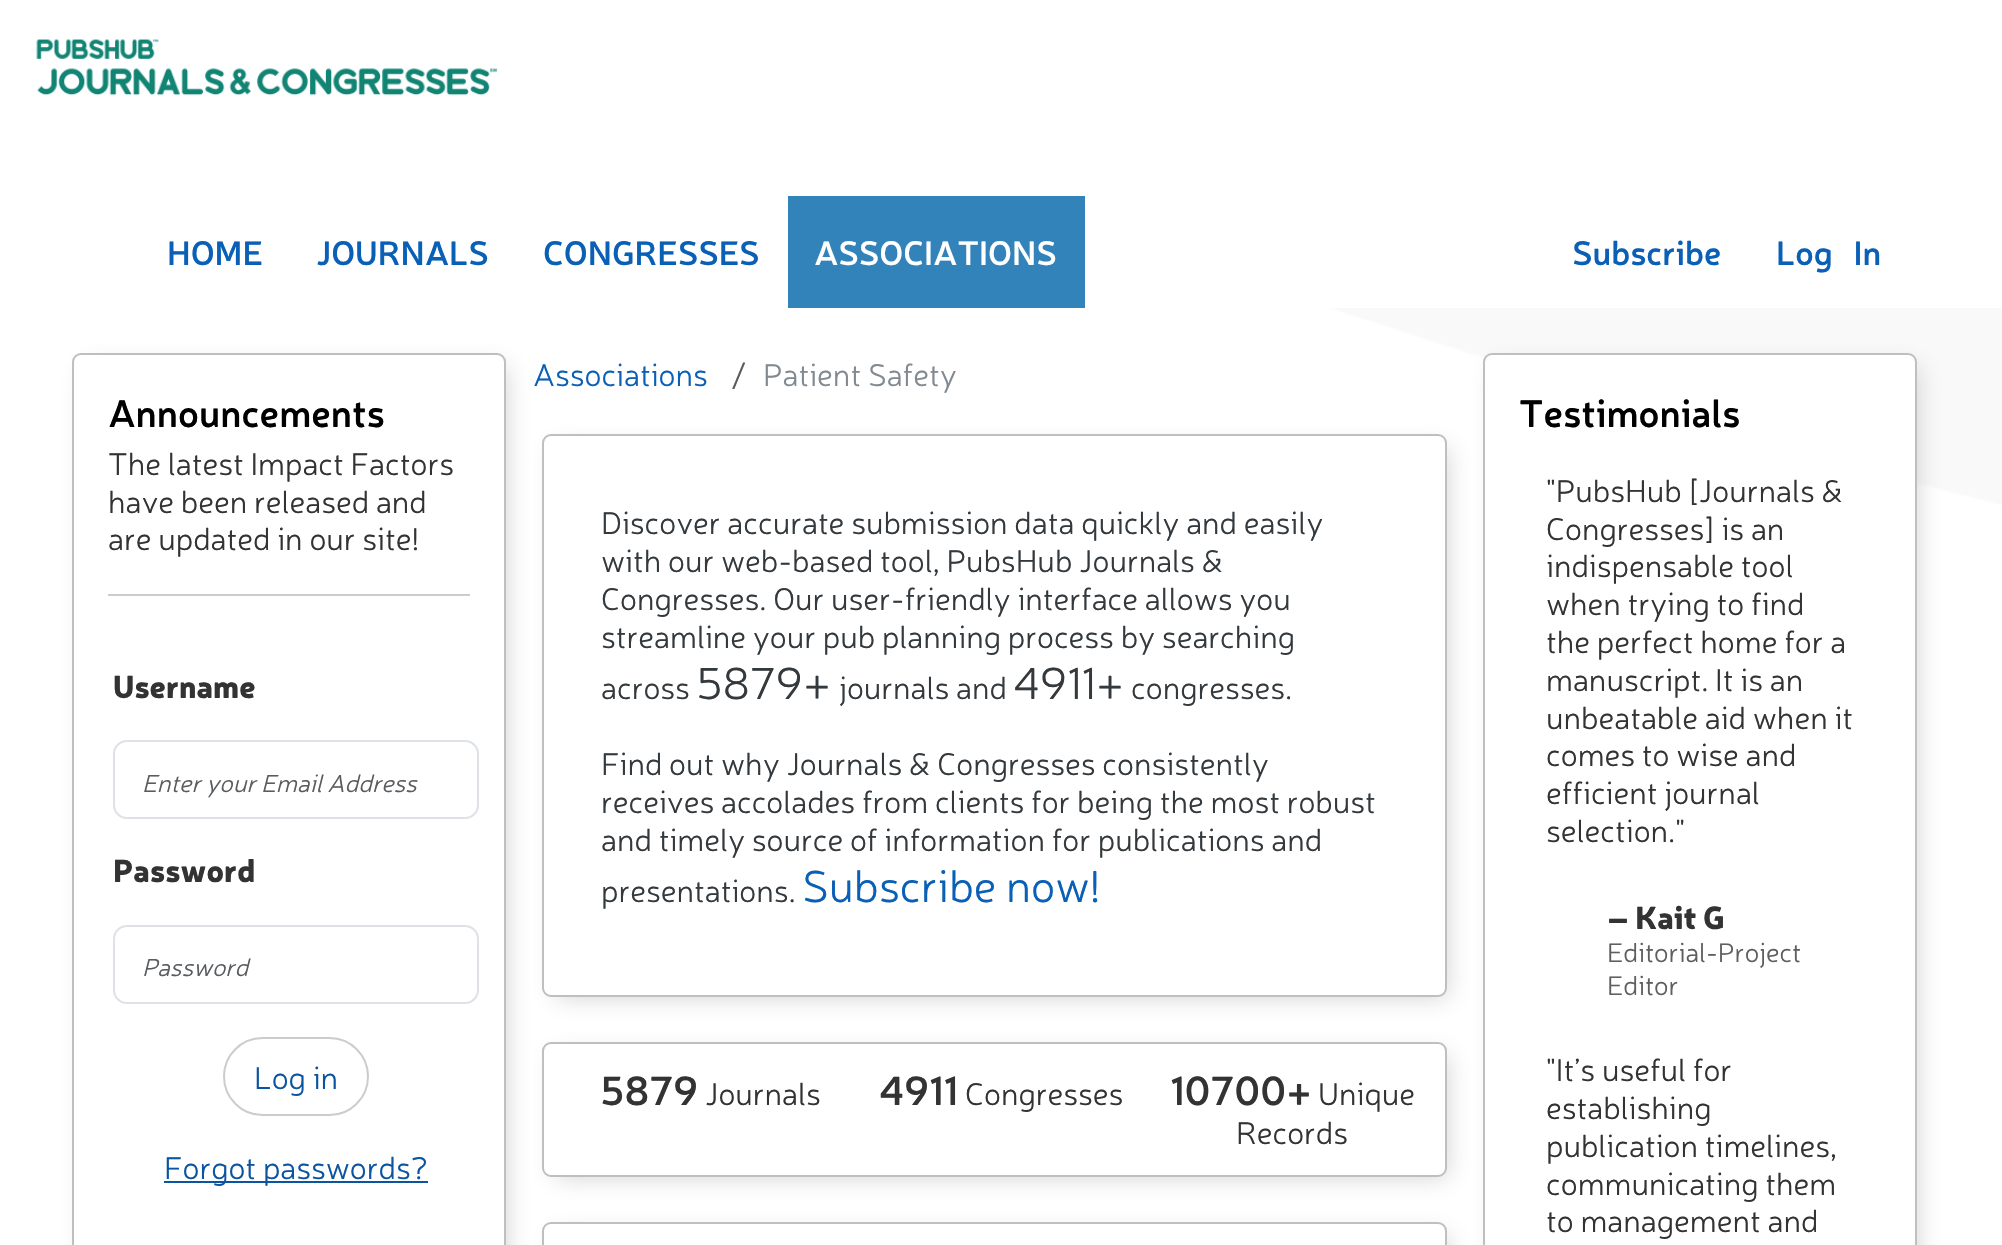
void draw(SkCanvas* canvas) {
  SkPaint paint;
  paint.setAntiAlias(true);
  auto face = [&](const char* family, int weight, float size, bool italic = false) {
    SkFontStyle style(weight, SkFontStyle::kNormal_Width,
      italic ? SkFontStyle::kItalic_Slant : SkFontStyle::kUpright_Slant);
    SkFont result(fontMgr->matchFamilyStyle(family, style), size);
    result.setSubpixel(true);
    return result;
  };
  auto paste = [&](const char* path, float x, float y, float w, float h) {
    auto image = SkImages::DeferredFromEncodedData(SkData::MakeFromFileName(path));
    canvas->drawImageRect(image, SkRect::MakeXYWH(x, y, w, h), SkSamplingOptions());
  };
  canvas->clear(0xffffffff);
  paste("img/1.png", 0, 308, 2002, 937);
  paste("img/2.png", 36, 39, 462, 57);
  paint.setColor(0xff3383bb);
  canvas->drawRect(SkRect::MakeXYWH(788, 196, 297, 112), paint);
  paint.setColor(0x4f6b6b6b);
  paint.setMaskFilter(SkMaskFilter::MakeBlur(kNormal_SkBlurStyle, 12.5f));
  canvas->drawRoundRect(SkRect::MakeXYWH(86, 367, 420, 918), 2, 2, paint);
  paint.setMaskFilter(nullptr);
  paint.setColor(0xffffffff);
  canvas->drawRoundRect(SkRect::MakeXYWH(73, 354, 432, 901), 8, 8, paint);
  paint.setStroke(true);
  paint.setStrokeWidth(2);
  paint.setColor(0xffbfbfbf);
  canvas->drawRoundRect(SkRect::MakeXYWH(73, 354, 432, 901), 8, 8, paint);
  paint.setStroke(false);
  paint.setColor(0xffcccccc);
  canvas->drawRect(SkRect::MakeXYWH(108, 594, 362, 2), paint);
  paint.setStroke(true);
  paint.setColor(0xffdee2e6);
  canvas->drawRoundRect(SkRect::MakeXYWH(114, 741, 364, 77), 13, 13, paint);
  canvas->drawRoundRect(SkRect::MakeXYWH(114, 926, 364, 77), 13, 13, paint);
  paint.setColor(0xffcccccc);
  canvas->drawRoundRect(SkRect::MakeXYWH(224, 1038, 144, 77), 38.5f, 38.5f, paint);
  paint.setStroke(false);
  paint.setColor(0xff0a54a1);
  canvas->drawRect(SkRect::MakeXYWH(164, 1181, 264, 2), paint);
  paint.setColor(0x4f6b6b6b);
  paint.setMaskFilter(SkMaskFilter::MakeBlur(kNormal_SkBlurStyle, 12.5f));
  canvas->drawRoundRect(SkRect::MakeXYWH(556, 448, 891, 549), 2, 2, paint);
  paint.setMaskFilter(nullptr);
  paint.setColor(0xffffffff);
  canvas->drawRoundRect(SkRect::MakeXYWH(543, 435, 903, 561), 8, 8, paint);
  paint.setStroke(true);
  paint.setColor(0xffbfbfbf);
  canvas->drawRoundRect(SkRect::MakeXYWH(543, 435, 903, 561), 8, 8, paint);
  paint.setStroke(false);
  paint.setColor(0x4f6b6b6b);
  paint.setMaskFilter(SkMaskFilter::MakeBlur(kNormal_SkBlurStyle, 12.5f));
  canvas->drawRoundRect(SkRect::MakeXYWH(556, 1055, 891, 122), 2, 2, paint);
  paint.setMaskFilter(nullptr);
  paint.setColor(0xffffffff);
  canvas->drawRoundRect(SkRect::MakeXYWH(543, 1043, 903, 133), 8, 8, paint);
  paint.setStroke(true);
  paint.setColor(0xffbfbfbf);
  canvas->drawRoundRect(SkRect::MakeXYWH(543, 1043, 903, 133), 8, 8, paint);
  paint.setStroke(false);
  paint.setColor(0x4f6b6b6b);
  paint.setMaskFilter(SkMaskFilter::MakeBlur(kNormal_SkBlurStyle, 12.5f));
  canvas->drawRoundRect(SkRect::MakeXYWH(556, 1235, 891, 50), 2, 2, paint);
  paint.setMaskFilter(nullptr);
  paint.setColor(0xffffffff);
  canvas->drawRoundRect(SkRect::MakeXYWH(543, 1223, 903, 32), 8, 8, paint);
  paint.setStroke(true);
  paint.setColor(0xffbfbfbf);
  canvas->drawRoundRect(SkRect::MakeXYWH(543, 1223, 903, 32), 8, 8, paint);
  paint.setStroke(false);
  paint.setColor(0x4f6b6b6b);
  paint.setMaskFilter(SkMaskFilter::MakeBlur(kNormal_SkBlurStyle, 12.5f));
  canvas->drawRoundRect(SkRect::MakeXYWH(1496, 367, 421, 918), 2, 2, paint);
  paint.setMaskFilter(nullptr);
  paint.setColor(0xffffffff);
  canvas->drawRoundRect(SkRect::MakeXYWH(1484, 354, 432, 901), 8, 8, paint);
  paint.setStroke(true);
  paint.setColor(0xffbfbfbf);
  canvas->drawRoundRect(SkRect::MakeXYWH(1484, 354, 432, 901), 8, 8, paint);
  auto f0 = face("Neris", 600, 33.75f);
  paint.setStroke(false);
  paint.setColor(0xff0a5fb6);
  {
    const struct { const char* s; float x, y; } items[] = {
      {"HOME", 167, 265},
      {"JOURNALS", 316, 265},
      {"CONGRESSES", 543, 265},
    };
    for (auto [s, x, y] : items) {
      canvas->drawString(s, x, y, f0, paint);
    }
  }
  paint.setColor(0xffffffff);
  canvas->drawString("ASSOCIATIONS", 814, 265, f0, paint);
  paint.setColor(0xff0a5fb6);
  canvas->drawString("Subscribe", 1572, 265, f0, paint);
  canvas->drawString("Log   In", 1776, 265, f0, paint);
  auto f1 = face("Neris", 600, 38.25f);
  paint.setColor(0xff000000);
  canvas->drawString("Announcements", 108, 427, f1, paint);
  auto f2 = face("Neris", 300, 31.5f);
  paint.setColor(0xff333333);
  {
    const struct { const char* s; float x, y; } items[] = {
      {"The latest Impact Factors", 108, 475},
      {"have been released and", 108, 513},
      {"are updated in our site!", 108, 550},
    };
    for (auto [s, x, y] : items) {
      canvas->drawString(s, x, y, f2, paint);
    }
  }
  auto f3 = face("Neris", 900, 31.5f);
  canvas->drawString("Username", 113, 698, f3, paint);
  auto f4 = face("Neris", 300, 24.75f, true);
  paint.setColor(0xff595c5f);
  canvas->drawString("Enter your Email Address", 142, 792, f4, paint);
  paint.setColor(0xff333333);
  canvas->drawString("Password", 113, 882, f3, paint);
  paint.setColor(0xff595c5f);
  canvas->drawString("Password", 142, 976, f4, paint);
  paint.setColor(0xff0a54a1);
  canvas->drawString("Log in", 254, 1089, f2, paint);
  canvas->drawString("Forgot passwords?", 164, 1179, f2, paint);
  paint.setColor(0xff0a5fb6);
  canvas->drawString("Associations", 533, 386, f2, paint);
  paint.setColor(0xff595c5f);
  canvas->drawString("/", 731, 386, f2, paint);
  paint.setColor(0xff818a91);
  canvas->drawString("Patient Safety", 763, 386, f2, paint);
  paint.setColor(0xff33393d);
  {
    const struct { const char* s; float x, y; } items[] = {
      {"Discover accurate submission data quickly and easily", 601, 534},
      {"with our web-based tool, PubsHub Journals &", 601, 572},
      {"Congresses. Our user-friendly interface allows you", 601, 610},
      {"streamline your pub planning process by searching", 601, 648},
      {"across", 601, 699},
    };
    for (auto [s, x, y] : items) {
      canvas->drawString(s, x, y, f2, paint);
    }
  }
  auto f5 = face("Neris", 300, 45);
  canvas->drawString("5879+", 696, 699, f5, paint);
  canvas->drawString("journals and", 839, 699, f2, paint);
  canvas->drawString("4911+", 1013, 699, f5, paint);
  {
    const struct { const char* s; float x, y; } items[] = {
      {"congresses.", 1131, 699},
      {"Find out why Journals & Congresses consistently", 601, 775},
      {"receives accolades from clients for being the most robust", 601, 813},
      {"and timely source of information for publications and", 601, 851},
      {"presentations.", 601, 902},
    };
    for (auto [s, x, y] : items) {
      canvas->drawString(s, x, y, f2, paint);
    }
  }
  paint.setColor(0xff0a5fb6);
  canvas->drawString("Subscribe now!", 802, 902, f5, paint);
  auto f6 = face("Neris", 600, 40.5f);
  paint.setColor(0xff333333);
  canvas->drawString("5879", 600, 1105, f6, paint);
  canvas->drawString("Journals", 705, 1105, f2, paint);
  canvas->drawString("4911", 879, 1105, f6, paint);
  canvas->drawString("Congresses", 965, 1105, f2, paint);
  canvas->drawString("10700+", 1170, 1105, f6, paint);
  canvas->drawString("Unique", 1318, 1105, f2, paint);
  canvas->drawString("Records", 1236, 1144, f2, paint);
  paint.setColor(0xff000000);
  canvas->drawString("Testimonials", 1519, 427, f1, paint);
  paint.setColor(0xff333333);
  {
    const struct { const char* s; float x, y; } items[] = {
      {"\"PubsHub [Journals &", 1546, 502},
      {"Congresses] is an", 1546, 540},
      {"indispensable tool", 1546, 577},
      {"when trying to find", 1546, 615},
      {"the perfect home for a", 1546, 653},
      {"manuscript. It is an", 1546, 691},
      {"unbeatable aid when it", 1546, 729},
      {"comes to wise and", 1546, 766},
      {"efficient journal", 1546, 804},
      {"selection.\"", 1546, 842},
    };
    for (auto [s, x, y] : items) {
      canvas->drawString(s, x, y, f2, paint);
    }
  }
  canvas->drawString("– Kait G", 1607, 929, f3, paint);
  auto f7 = face("Neris", 300, 27);
  paint.setColor(0xff5f5f5f);
  canvas->drawString("Editorial-Project", 1607, 962, f7, paint);
  canvas->drawString("Editor", 1607, 995, f7, paint);
  paint.setColor(0xff333333);
  {
    const struct { const char* s; float x, y; } items[] = {
      {"\"It’s useful for", 1546, 1081},
      {"establishing", 1546, 1119},
      {"publication timelines,", 1546, 1157},
      {"communicating them", 1546, 1195},
      {"to management and", 1546, 1232},
    };
    for (auto [s, x, y] : items) {
      canvas->drawString(s, x, y, f2, paint);
    }
  }
}
